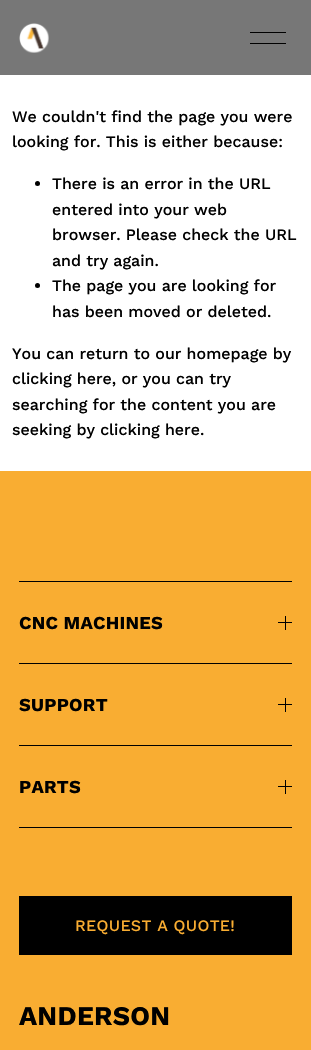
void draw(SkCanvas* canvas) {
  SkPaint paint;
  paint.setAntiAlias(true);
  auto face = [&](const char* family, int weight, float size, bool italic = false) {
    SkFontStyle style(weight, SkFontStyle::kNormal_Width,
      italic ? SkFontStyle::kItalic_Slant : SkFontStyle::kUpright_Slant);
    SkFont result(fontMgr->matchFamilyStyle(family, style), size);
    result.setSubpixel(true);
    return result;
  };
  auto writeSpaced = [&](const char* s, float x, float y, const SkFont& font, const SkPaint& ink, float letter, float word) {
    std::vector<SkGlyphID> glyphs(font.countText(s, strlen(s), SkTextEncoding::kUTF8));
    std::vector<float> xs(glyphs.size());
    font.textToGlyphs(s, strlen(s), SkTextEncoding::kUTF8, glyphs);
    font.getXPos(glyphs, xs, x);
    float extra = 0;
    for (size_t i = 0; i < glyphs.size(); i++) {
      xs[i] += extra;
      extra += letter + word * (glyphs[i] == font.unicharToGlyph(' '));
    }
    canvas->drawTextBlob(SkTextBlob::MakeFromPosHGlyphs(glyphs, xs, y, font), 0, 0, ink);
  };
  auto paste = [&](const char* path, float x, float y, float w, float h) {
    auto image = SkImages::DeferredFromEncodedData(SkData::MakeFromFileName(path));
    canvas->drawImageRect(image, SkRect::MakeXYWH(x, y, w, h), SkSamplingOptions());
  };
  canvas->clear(0xffffffff);
  paint.setColor(0xff777777);
  canvas->drawRect(SkRect::MakeXYWH(0, 0, 311, 75), paint);
  paste("img/1.png", 19, 23, 30, 30);
  paint.setColor(0xff000000);
  canvas->drawRect(SkRect::MakeXYWH(250, 32, 36, 1), paint);
  canvas->drawRect(SkRect::MakeXYWH(250, 43, 36, 1), paint);
  canvas->drawCircle(37.5f, 183.5f, 2.5f, paint);
  canvas->drawCircle(37.5f, 285.5f, 2.5f, paint);
  {
    const struct { float x, y, w, h; SkColor color; } items[] = {
      {0, 471, 311, 579, 0xfff9ad32},
      {19, 581, 273, 1, 0xff000000},
      {278, 622, 14, 1, 0xff000000},
      {285, 616, 1, 14, 0xff000000},
      {19, 663, 273, 1, 0xff000000},
      {278, 704, 14, 1, 0xff000000},
      {285, 698, 1, 14, 0xff000000},
      {19, 745, 273, 1, 0xff000000},
      {278, 786, 14, 1, 0xff000000},
      {285, 780, 1, 14, 0xff000000},
      {19, 827, 273, 1, 0xff000000},
      {19, 896, 273, 59, 0xff000000},
    };
    for (auto [x, y, w, h, color] : items) {
      paint.setColor(color);
      canvas->drawRect(SkRect::MakeXYWH(x, y, w, h), paint);
    }
  }
  auto f0 = face("Work Sans", 500, 16);
  {
    const struct { const char* s; float x, y; } items[] = {
      {"We couldn't find the page you were", 12, 122},
      {"looking for. This is either because:", 12, 147},
      {"There is an error in the URL", 52, 189},
      {"entered into your web", 52, 215},
      {"browser. Please check the URL", 52, 240},
      {"and try again.", 52, 266},
      {"The page you are looking for", 52, 291},
      {"has been moved or deleted.", 52, 317},
      {"You can return to our homepage by", 12, 359},
      {"clicking here, or you can try", 12, 384},
      {"searching for the content you are", 12, 410},
      {"seeking by clicking here.", 12, 435},
    };
    for (auto [s, x, y] : items) {
      canvas->drawString(s, x, y, f0, paint);
    }
  }
  auto f1 = face("Work Sans", 700, 18.25f);
  {
    const struct { const char* s; float x, y; } items[] = {
      {"CNC MACHINES", 19, 629},
      {"SUPPORT", 19, 711},
      {"PARTS", 19, 793},
    };
    for (auto [s, x, y] : items) {
      writeSpaced(s, x, y, f1, paint, 0.25f, 0);
    }
  }
  paint.setColor(0xfff9ad32);
  writeSpaced("REQUEST A QUOTE!", 75, 931, f0, paint, 0.3f, 0);
  auto f2 = face("Work Sans", 700, 26.75f);
  paint.setColor(0xff000000);
  writeSpaced("ANDERSON", 19, 1025, f2, paint, 0.25f, 0);
}
